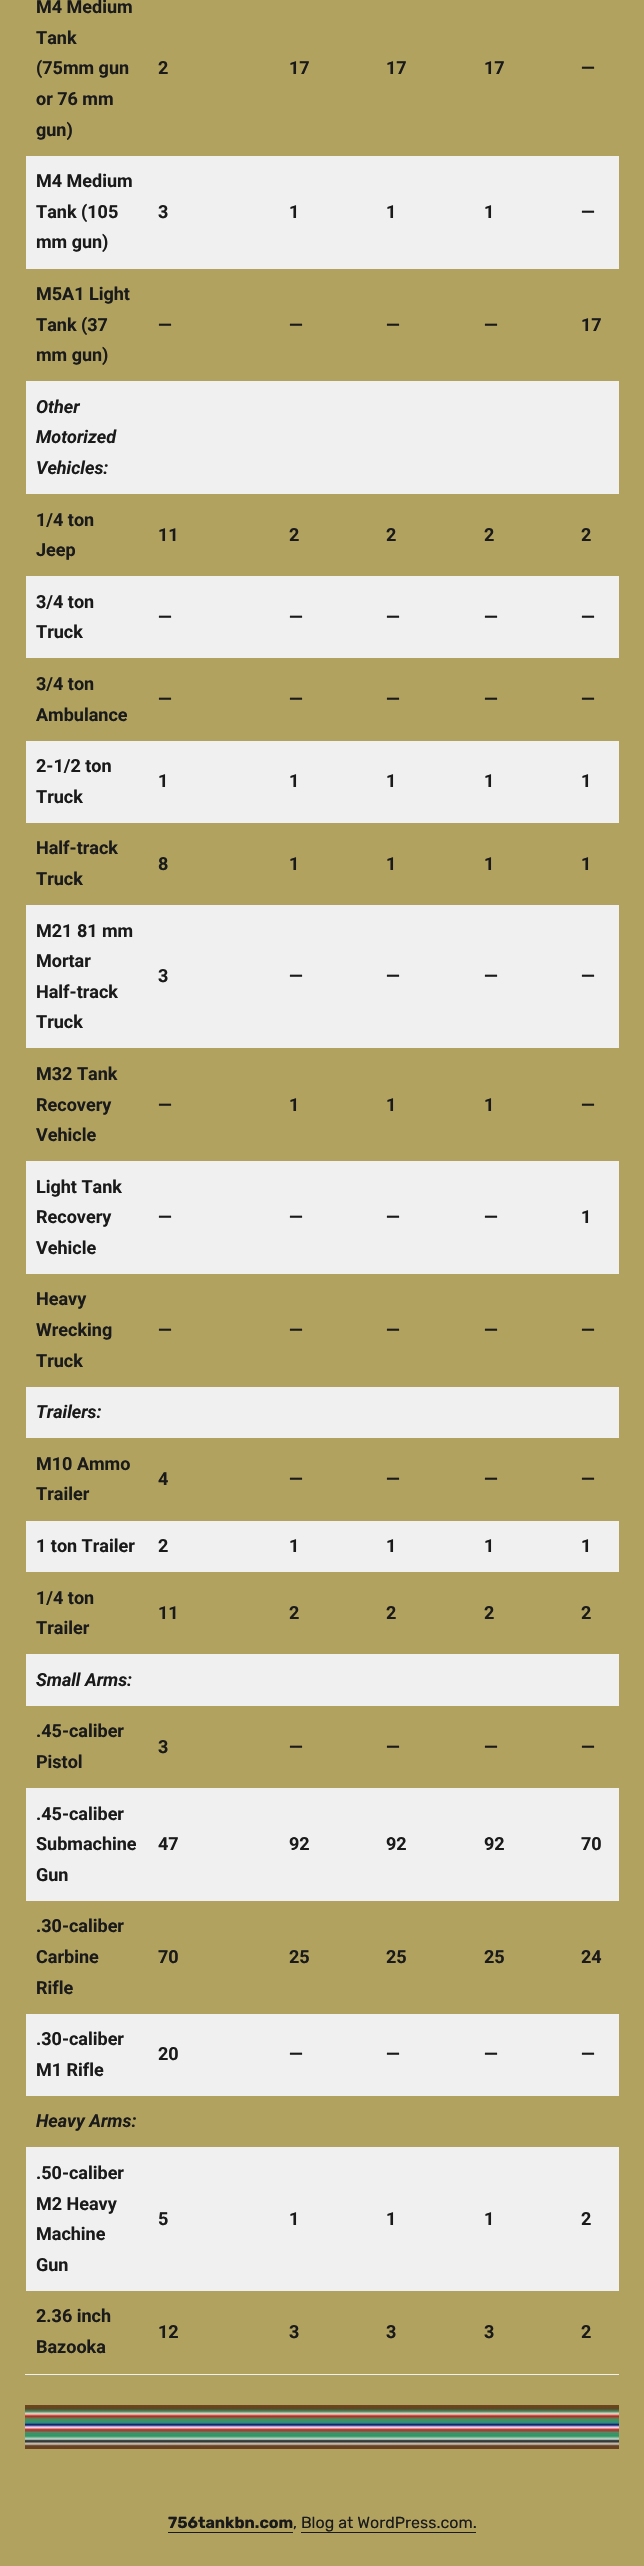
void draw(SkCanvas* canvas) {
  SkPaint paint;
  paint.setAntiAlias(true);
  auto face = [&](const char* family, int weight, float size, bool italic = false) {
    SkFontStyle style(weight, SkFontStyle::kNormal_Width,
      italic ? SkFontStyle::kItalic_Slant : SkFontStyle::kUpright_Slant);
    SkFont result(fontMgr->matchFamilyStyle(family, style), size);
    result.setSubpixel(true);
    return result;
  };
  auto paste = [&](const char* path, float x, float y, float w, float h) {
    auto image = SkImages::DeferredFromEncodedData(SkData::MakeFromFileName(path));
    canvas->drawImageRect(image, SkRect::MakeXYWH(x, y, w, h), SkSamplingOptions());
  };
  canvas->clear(0xffb2a260);
  {
    const struct { float x, y, w, h; SkColor color; } items[] = {
      {25, 2374, 594, 1, 0xfff0f0f0},
      {26, 156, 593, 113, 0xfff0f0f0},
      {26, 381, 593, 113, 0xfff0f0f0},
      {26, 576, 593, 82, 0xfff0f0f0},
      {26, 741, 593, 82, 0xfff0f0f0},
      {26, 905, 593, 143, 0xfff0f0f0},
      {26, 1161, 593, 113, 0xfff0f0f0},
      {26, 1387, 593, 51, 0xfff0f0f0},
      {26, 1521, 593, 51, 0xfff0f0f0},
      {26, 1654, 593, 52, 0xfff0f0f0},
      {26, 1788, 593, 113, 0xfff0f0f0},
      {26, 2014, 593, 82, 0xfff0f0f0},
      {26, 2147, 593, 144, 0xfff0f0f0},
    };
    for (auto [x, y, w, h, color] : items) {
      paint.setColor(color);
      canvas->drawRect(SkRect::MakeXYWH(x, y, w, h), paint);
    }
  }
  paste("img/1.png", 25, 2405, 594, 44);
  paint.setColor(0xff1a1a1a);
  canvas->drawRect(SkRect::MakeXYWH(168, 2532, 125, 1), paint);
  canvas->drawRect(SkRect::MakeXYWH(301, 2532, 175, 1), paint);
  auto f0 = face("Roboto", 700, 18);
  {
    const struct { const char* s; float x, y; } items[] = {
      {"M4 Medium", 36, 13},
      {"Tank", 36, 44},
      {"(75mm gun", 36, 74},
      {"or 76 mm", 36, 105},
      {"gun)", 36, 136},
      {"2", 158, 74},
      {"17", 289, 74},
      {"17", 386, 74},
      {"17", 484, 74},
      {"—", 581, 74},
      {"M4 Medium", 36, 187},
      {"Tank (105", 36, 218},
      {"mm gun)", 36, 248},
      {"3", 158, 218},
      {"1", 289, 218},
      {"1", 386, 218},
      {"1", 484, 218},
      {"—", 581, 218},
      {"M5A1 Light", 36, 300},
      {"Tank (37", 36, 331},
      {"mm gun)", 36, 361},
      {"—", 158, 331},
      {"—", 289, 331},
      {"—", 386, 331},
      {"—", 484, 331},
      {"17", 581, 331},
    };
    for (auto [s, x, y] : items) {
      canvas->drawString(s, x, y, f0, paint);
    }
  }
  auto f1 = face("Roboto", 700, 18, true);
  {
    const struct { const char* s; float x, y; } items[] = {
      {"Other", 36, 413},
      {"Motorized", 36, 443},
      {"Vehicles:", 36, 474},
    };
    for (auto [s, x, y] : items) {
      canvas->drawString(s, x, y, f1, paint);
    }
  }
  {
    const struct { const char* s; float x, y; } items[] = {
      {"1/4 ton", 36, 526},
      {"Jeep", 36, 556},
      {"11", 158, 541},
      {"2", 289, 541},
      {"2", 386, 541},
      {"2", 484, 541},
      {"2", 581, 541},
      {"3/4 ton", 36, 608},
      {"Truck", 36, 638},
      {"—", 158, 623},
      {"—", 289, 623},
      {"—", 386, 623},
      {"—", 484, 623},
      {"—", 581, 623},
      {"3/4 ton", 36, 690},
      {"Ambulance", 36, 721},
      {"—", 158, 705},
      {"—", 289, 705},
      {"—", 386, 705},
      {"—", 484, 705},
      {"—", 581, 705},
      {"2-1/2 ton", 36, 772},
      {"Truck", 36, 803},
      {"1", 158, 787},
      {"1", 289, 787},
      {"1", 386, 787},
      {"1", 484, 787},
      {"1", 581, 787},
      {"Half-track", 36, 854},
      {"Truck", 36, 885},
      {"8", 158, 870},
      {"1", 289, 870},
      {"1", 386, 870},
      {"1", 484, 870},
      {"1", 581, 870},
      {"M21 81 mm", 36, 937},
      {"Mortar", 36, 967},
      {"Half-track", 36, 998},
      {"Truck", 36, 1028},
      {"3", 158, 982},
      {"—", 289, 982},
      {"—", 386, 982},
      {"—", 484, 982},
      {"—", 581, 982},
      {"M32 Tank", 36, 1080},
      {"Recovery", 36, 1111},
      {"Vehicle", 36, 1141},
      {"—", 158, 1111},
      {"1", 289, 1111},
      {"1", 386, 1111},
      {"1", 484, 1111},
      {"—", 581, 1111},
      {"Light Tank", 36, 1193},
      {"Recovery", 36, 1223},
      {"Vehicle", 36, 1254},
      {"—", 158, 1223},
      {"—", 289, 1223},
      {"—", 386, 1223},
      {"—", 484, 1223},
      {"1", 581, 1223},
      {"Heavy", 36, 1305},
      {"Wrecking", 36, 1336},
      {"Truck", 36, 1367},
      {"—", 158, 1336},
      {"—", 289, 1336},
      {"—", 386, 1336},
      {"—", 484, 1336},
      {"—", 581, 1336},
    };
    for (auto [s, x, y] : items) {
      canvas->drawString(s, x, y, f0, paint);
    }
  }
  canvas->drawString("Trailers:", 36, 1418, f1, paint);
  {
    const struct { const char* s; float x, y; } items[] = {
      {"M10 Ammo", 36, 1470},
      {"Trailer", 36, 1500},
      {"4", 158, 1485},
      {"—", 289, 1485},
      {"—", 386, 1485},
      {"—", 484, 1485},
      {"—", 581, 1485},
      {"1 ton Trailer", 36, 1552},
      {"2", 158, 1552},
      {"1", 289, 1552},
      {"1", 386, 1552},
      {"1", 484, 1552},
      {"1", 581, 1552},
      {"1/4 ton", 36, 1604},
      {"Trailer", 36, 1634},
      {"11", 158, 1619},
      {"2", 289, 1619},
      {"2", 386, 1619},
      {"2", 484, 1619},
      {"2", 581, 1619},
    };
    for (auto [s, x, y] : items) {
      canvas->drawString(s, x, y, f0, paint);
    }
  }
  canvas->drawString("Small Arms:", 36, 1686, f1, paint);
  {
    const struct { const char* s; float x, y; } items[] = {
      {".45-caliber", 36, 1737},
      {"Pistol", 36, 1768},
      {"3", 158, 1753},
      {"—", 289, 1753},
      {"—", 386, 1753},
      {"—", 484, 1753},
      {"—", 581, 1753},
      {".45-caliber", 36, 1820},
      {"Submachine", 36, 1850},
      {"Gun", 36, 1881},
      {"47", 158, 1850},
      {"92", 289, 1850},
      {"92", 386, 1850},
      {"92", 484, 1850},
      {"70", 581, 1850},
      {".30-caliber", 36, 1932},
      {"Carbine", 36, 1963},
      {"Rifle", 36, 1994},
      {"70", 158, 1963},
      {"25", 289, 1963},
      {"25", 386, 1963},
      {"25", 484, 1963},
      {"24", 581, 1963},
      {".30-caliber", 36, 2045},
      {"M1 Rifle", 36, 2076},
      {"20", 158, 2060},
      {"—", 289, 2060},
      {"—", 386, 2060},
      {"—", 484, 2060},
      {"—", 581, 2060},
    };
    for (auto [s, x, y] : items) {
      canvas->drawString(s, x, y, f0, paint);
    }
  }
  canvas->drawString("Heavy Arms:", 36, 2127, f1, paint);
  {
    const struct { const char* s; float x, y; } items[] = {
      {".50-caliber", 36, 2179},
      {"M2 Heavy", 36, 2210},
      {"Machine", 36, 2240},
      {"Gun", 36, 2271},
      {"5", 158, 2225},
      {"1", 289, 2225},
      {"1", 386, 2225},
      {"1", 484, 2225},
      {"2", 581, 2225},
      {"2.36 inch", 36, 2322},
      {"Bazooka", 36, 2353},
      {"12", 158, 2338},
      {"3", 289, 2338},
      {"3", 386, 2338},
      {"3", 484, 2338},
      {"2", 581, 2338},
    };
    for (auto [s, x, y] : items) {
      canvas->drawString(s, x, y, f0, paint);
    }
  }
  auto f2 = face("Rubik", 700, 16);
  canvas->drawString("756tankbn.com", 168, 2528, f2, paint);
  auto f3 = face("Rubik", 400, 16);
  canvas->drawString(", Blog at WordPress.com.", 293, 2528, f3, paint);
}
